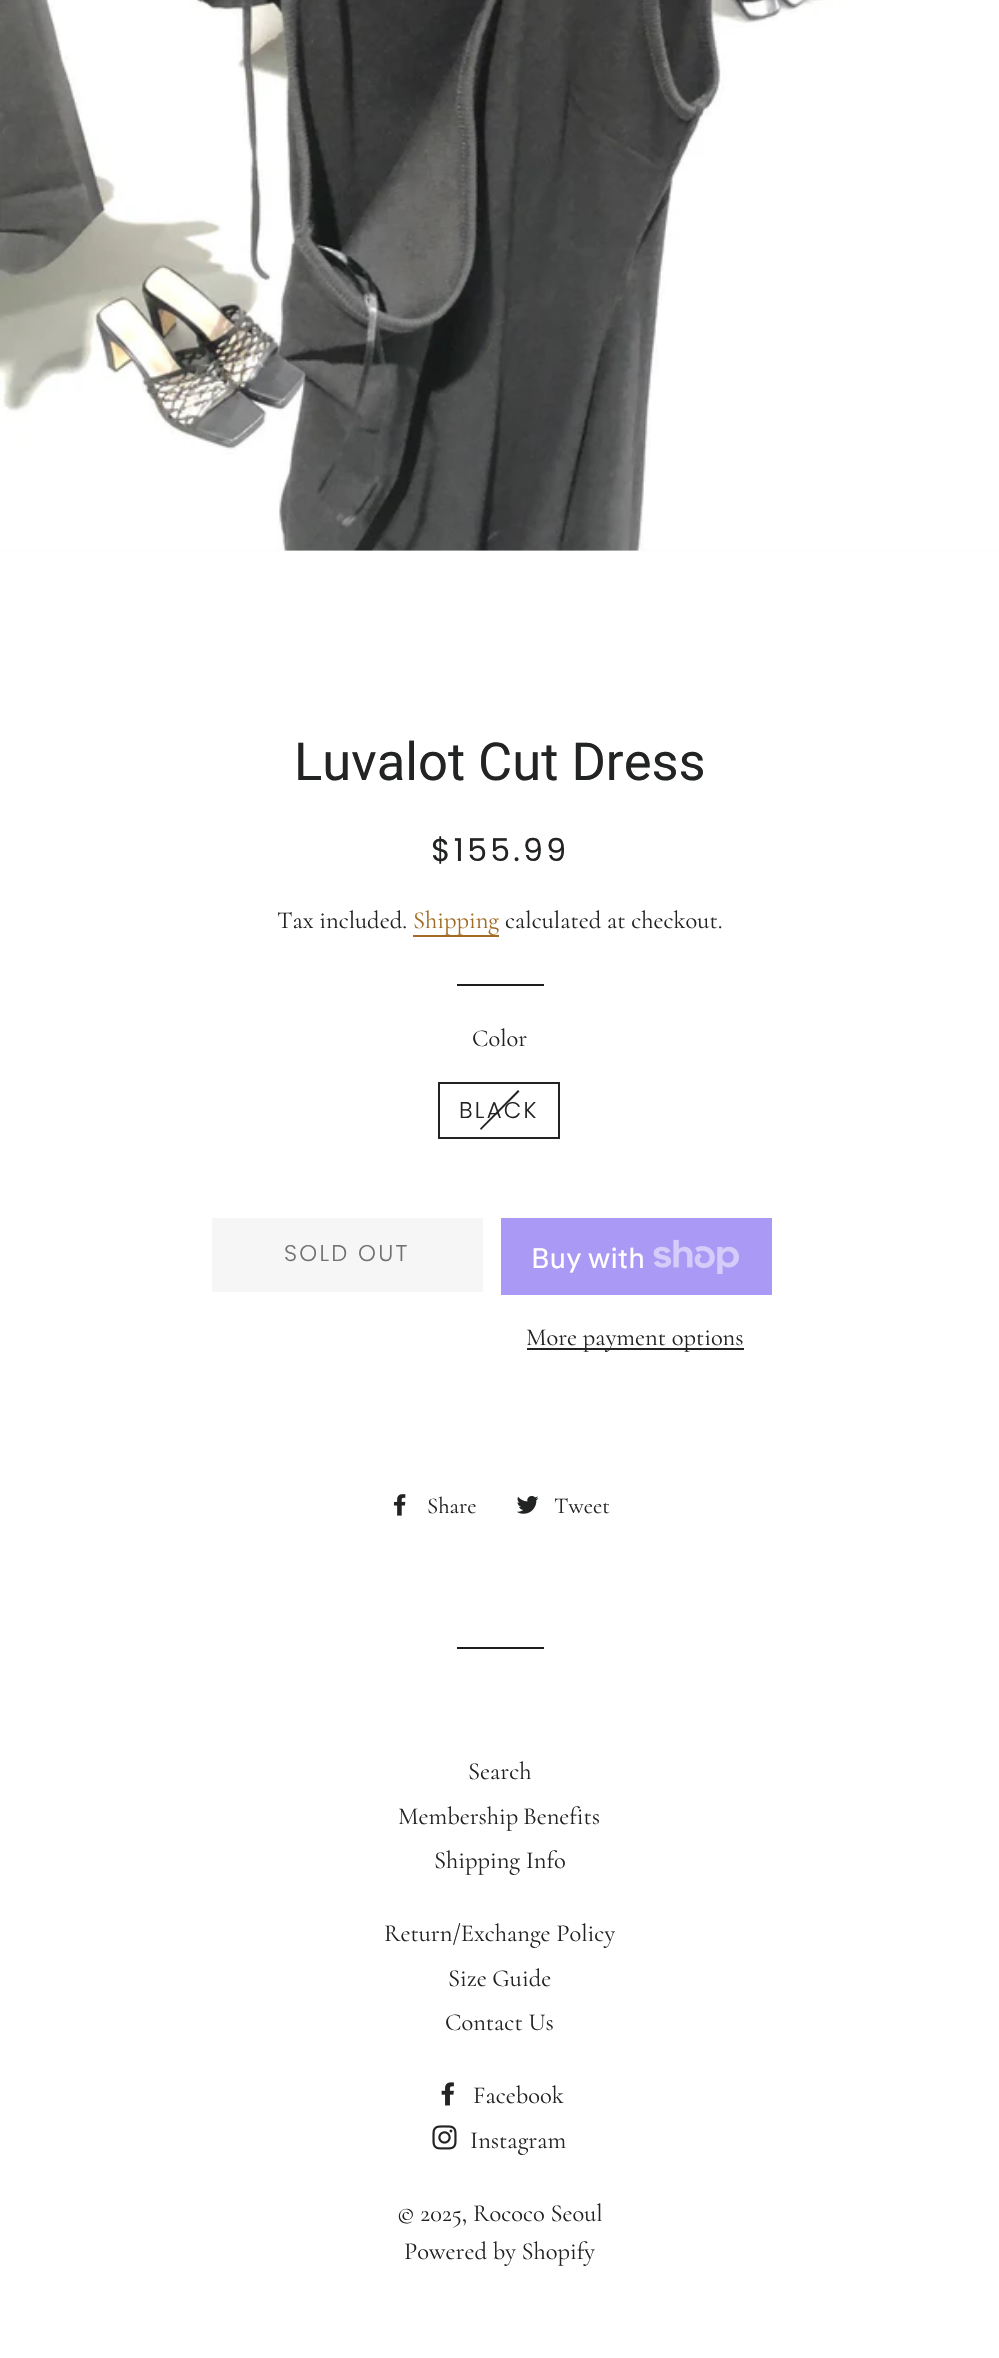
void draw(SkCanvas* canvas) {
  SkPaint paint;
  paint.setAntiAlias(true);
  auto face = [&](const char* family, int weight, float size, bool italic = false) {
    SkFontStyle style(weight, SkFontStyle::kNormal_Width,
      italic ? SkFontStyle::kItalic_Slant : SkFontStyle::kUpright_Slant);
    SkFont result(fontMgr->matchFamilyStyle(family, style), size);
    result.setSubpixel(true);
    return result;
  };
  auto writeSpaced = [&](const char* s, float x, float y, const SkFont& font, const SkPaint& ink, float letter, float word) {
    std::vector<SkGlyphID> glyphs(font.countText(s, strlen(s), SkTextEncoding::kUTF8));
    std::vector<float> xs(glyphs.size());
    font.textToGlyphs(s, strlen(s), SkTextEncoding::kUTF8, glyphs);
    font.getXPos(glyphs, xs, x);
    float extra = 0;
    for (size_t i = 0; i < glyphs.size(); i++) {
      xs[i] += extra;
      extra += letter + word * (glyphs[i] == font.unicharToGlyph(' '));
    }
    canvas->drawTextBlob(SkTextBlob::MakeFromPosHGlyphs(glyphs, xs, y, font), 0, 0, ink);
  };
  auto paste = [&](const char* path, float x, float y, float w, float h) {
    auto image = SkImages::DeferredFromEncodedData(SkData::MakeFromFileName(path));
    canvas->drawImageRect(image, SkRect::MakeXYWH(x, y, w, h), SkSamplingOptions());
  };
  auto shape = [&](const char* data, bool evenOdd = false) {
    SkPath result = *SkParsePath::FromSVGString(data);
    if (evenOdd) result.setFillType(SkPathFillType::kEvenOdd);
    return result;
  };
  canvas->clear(0xffffffff);
  paint.setColor(0xfff7f7f7);
  canvas->drawRect(SkRect::MakeXYWH(0, 550, 999, 1), paint);
  paste("img/1.png", 0, 0, 999, 551);
  paint.setColor(0xffa26b25);
  canvas->drawRect(SkRect::MakeXYWH(413, 935, 86, 2), paint);
  paint.setColor(0xff1c1d1d);
  canvas->drawRect(SkRect::MakeXYWH(457, 984, 87, 2), paint);
  paint.setStroke(true);
  paint.setStrokeWidth(2);
  paint.setColor(0xff222323);
  canvas->drawRect(SkRect::MakeXYWH(439, 1083, 120, 55), paint);
  paint.setStroke(false);
  canvas->drawPath(shape("M518 1090L519.5 1091.5L481 1130L480 1128.5Z"), paint);
  paint.setColor(0xfff6f6f6);
  canvas->drawRect(SkRect::MakeXYWH(212, 1218, 271, 74), paint);
  paint.setColor(0xffaa99f5);
  canvas->drawRect(SkRect::MakeXYWH(501, 1218, 271, 77), paint);
  paste("img/2.png", 653, 1239, 86, 35);
  paint.setColor(0xff222323);
  canvas->drawRect(SkRect::MakeXYWH(527, 1348, 217, 2), paint);
  paste("img/3.png", 393, 1494, 13, 22);
  paste("img/4.png", 516, 1496, 23, 18);
  paint.setColor(0xff1c1d1d);
  canvas->drawRect(SkRect::MakeXYWH(457, 1647, 87, 2), paint);
  paste("img/5.png", 441, 2082, 13, 24);
  paste("img/6.png", 432, 2125, 25, 25);
  auto f0 = face("Roboto", 400, 52.5f);
  paint.setColor(0xff222323);
  canvas->drawString("Luvalot Cut Dress", 294, 780, f0, paint);
  auto f1 = face("Poppins", 400, 31.5f);
  writeSpaced("$155.99", 431, 861, f1, paint, 3.25f, 0);
  auto f2 = face("Cormorant", 400, 24.5f);
  canvas->drawString("Tax included.", 277, 928, f2, paint);
  paint.setColor(0xffa26b25);
  canvas->drawString("Shipping", 413, 928, f2, paint);
  paint.setColor(0xff222323);
  canvas->drawString("calculated at checkout.", 505, 928, f2, paint);
  canvas->drawString("Color", 472, 1046, f2, paint);
  auto f3 = face("Poppins", 300, 22.75f);
  writeSpaced("BLACK", 459, 1118, f3, paint, 2.25f, 0);
  paint.setColor(0xff717171);
  writeSpaced("SOLD OUT", 284, 1261, f3, paint, 2.25f, 0);
  auto f4 = face("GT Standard", 400, 28);
  paint.setColor(0xffffffff);
  canvas->drawString("Buy with", 531, 1268, f4, paint);
  paint.setColor(0xff222323);
  canvas->drawString("More payment options", 526, 1345, f2, paint);
  auto f5 = face("Cormorant", 400, 22.75f);
  canvas->drawString("Share", 427, 1513, f5, paint);
  canvas->drawString("Tweet", 554, 1513, f5, paint);
  canvas->drawString("Search", 468, 1779, f2, paint);
  writeSpaced("Membership Benefits", 398, 1824, f2, paint, 0, -1);
  {
    const struct { const char* s; float x, y; } items[] = {
      {"Shipping Info", 434, 1868},
      {"Return/Exchange Policy", 384, 1941},
      {"Size Guide", 448, 1986},
      {"Contact Us", 445, 2030},
      {"Facebook", 473, 2103},
      {"Instagram", 470, 2148},
      {"© 2025, Rococo Seoul", 397, 2221},
      {"Powered by Shopify", 404, 2259},
    };
    for (auto [s, x, y] : items) {
      canvas->drawString(s, x, y, f2, paint);
    }
  }
}
